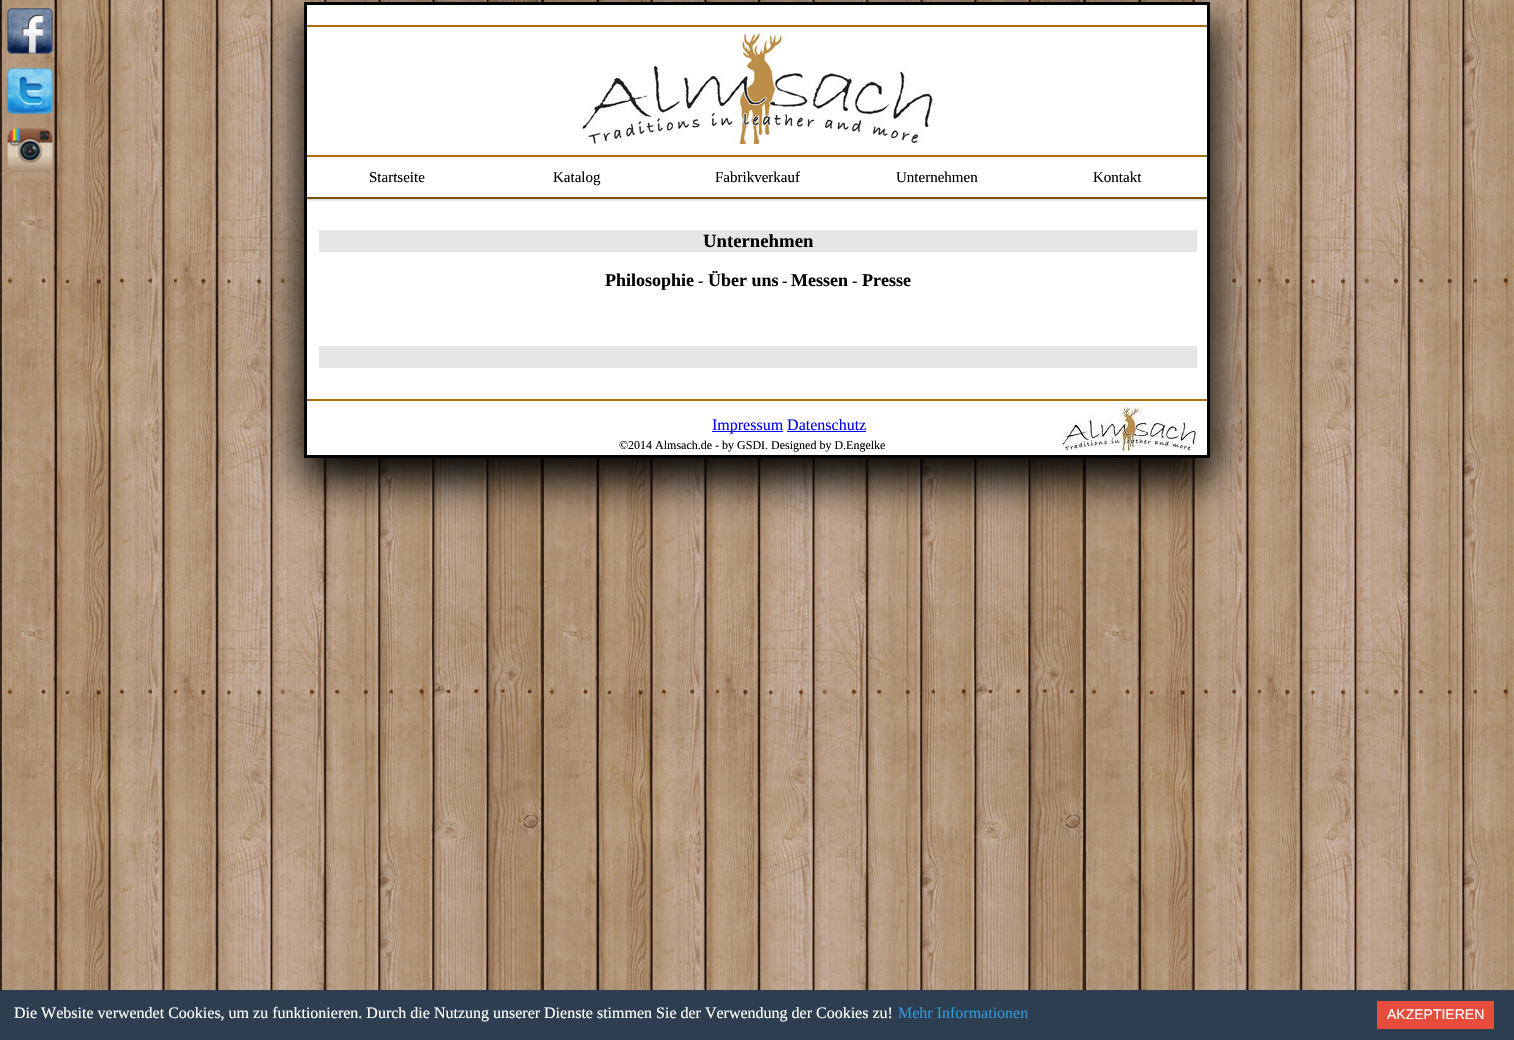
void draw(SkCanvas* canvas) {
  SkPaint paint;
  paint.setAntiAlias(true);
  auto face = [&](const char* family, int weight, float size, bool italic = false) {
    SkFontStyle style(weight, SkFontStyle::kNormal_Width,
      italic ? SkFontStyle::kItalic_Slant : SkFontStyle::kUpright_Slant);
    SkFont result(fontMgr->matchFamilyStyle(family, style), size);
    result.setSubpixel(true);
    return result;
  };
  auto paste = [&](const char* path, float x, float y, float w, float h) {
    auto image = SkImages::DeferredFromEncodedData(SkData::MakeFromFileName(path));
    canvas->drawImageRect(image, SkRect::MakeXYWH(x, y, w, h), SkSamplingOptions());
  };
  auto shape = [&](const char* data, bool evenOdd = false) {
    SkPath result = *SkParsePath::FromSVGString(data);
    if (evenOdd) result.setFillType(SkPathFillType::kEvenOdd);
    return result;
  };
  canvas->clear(0xffffffff);
  paste("img/1.png", 0, 453, 1514, 537);
  paste("img/2.png", 0, 0, 1514, 453);
  paint.setColor(0xff000000);
  paint.setMaskFilter(SkMaskFilter::MakeBlur(kNormal_SkBlurStyle, 20));
  canvas->drawRect(SkRect::MakeXYWH(302, 19, 912, 462), paint);
  paint.setMaskFilter(nullptr);
  paint.setColor(0xffffffff);
  canvas->drawRect(SkRect::MakeXYWH(305.5f, 3.5f, 903, 453), paint);
  paint.setStroke(true);
  paint.setStrokeWidth(3);
  paint.setColor(0xff000000);
  canvas->drawRect(SkRect::MakeXYWH(305.5f, 3.5f, 903, 453), paint);
  paste("img/3.png", 7, 7, 46, 47);
  paste("img/4.png", 7, 67, 46, 47);
  paste("img/5.png", 7, 128, 46, 52);
  paste("img/6.png", 581, 32, 352, 112);
  paint.setStroke(false);
  {
    const struct { float x, y, w, h; SkColor color; } items[] = {
      {307, 25, 900, 2, 0xffac710d},
      {307, 155, 900, 2, 0xffac710d},
      {307, 197, 900, 2, 0xffac710d},
    };
    for (auto [x, y, w, h, color] : items) {
      paint.setColor(color);
      canvas->drawRect(SkRect::MakeXYWH(x, y, w, h), paint);
    }
  }
  canvas->save();
  canvas->clipPath(shape("M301 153H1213V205H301ZM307 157H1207V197H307Z", true), true);
  paint.setColor(0x66000000);
  paint.setMaskFilter(SkMaskFilter::MakeBlur(kNormal_SkBlurStyle, 1.5f));
  canvas->drawRect(SkRect::MakeXYWH(307, 159, 900, 40), paint);
  paint.setMaskFilter(nullptr);
  canvas->restore();
  {
    const struct { float x, y, w, h; SkColor color; } items[] = {
      {319, 230, 878, 22, 0xffe6e6e6},
      {319, 346, 878, 22, 0xffe6e6e6},
      {307, 399, 900, 2, 0xffac710d},
      {712, 431, 71, 1, 0xff0000ee},
      {787, 431, 79, 1, 0xff0000ee},
    };
    for (auto [x, y, w, h, color] : items) {
      paint.setColor(color);
      canvas->drawRect(SkRect::MakeXYWH(x, y, w, h), paint);
    }
  }
  paste("img/7.png", 1062, 407, 135, 44);
  paint.setColor(0xff2c3e50);
  canvas->drawRect(SkRect::MakeXYWH(0, 990, 1514, 50), paint);
  paint.setColor(0xffe74c3c);
  canvas->drawRect(SkRect::MakeXYWH(1377, 1001, 117, 28), paint);
  auto f0 = face("Liberation Serif", 400, 15);
  paint.setColor(0xff000000);
  {
    const struct { const char* s; float x, y; } items[] = {
      {"Startseite", 369, 182},
      {"Katalog", 553, 182},
      {"Fabrikverkauf", 715, 182},
      {"Unternehmen", 896, 182},
      {"Kontakt", 1093, 182},
    };
    for (auto [s, x, y] : items) {
      canvas->drawString(s, x, y, f0, paint);
    }
  }
  auto f1 = face("Liberation Serif", 700, 18.75f);
  canvas->drawString("Unternehmen", 703, 247, f1, paint);
  auto f2 = face("Liberation Serif", 700, 18);
  canvas->drawString("Philosophie", 605, 286, f2, paint);
  auto f3 = face("Liberation Serif", 400, 16);
  canvas->drawString("-", 698, 286, f3, paint);
  canvas->drawString("Über uns", 708, 286, f2, paint);
  canvas->drawString("-", 782, 286, f3, paint);
  canvas->drawString("Messen", 791, 286, f2, paint);
  canvas->drawString("-", 852, 286, f3, paint);
  canvas->drawString("Presse", 862, 286, f2, paint);
  paint.setColor(0xff0000ee);
  canvas->drawString("Impressum Datenschutz", 712, 430, f3, paint);
  auto f4 = face("Liberation Serif", 400, 12);
  paint.setColor(0xff000000);
  canvas->drawString("©2014 Almsach.de - by GSDI. Designed by D.Engelke", 619, 449, f4, paint);
  paint.setColor(0xffffffff);
  canvas->drawString("Die Website verwendet Cookies, um zu funktionieren. Durch die Nutzung unserer Dienste stimmen Sie der Verwendung der Cookies zu!", 14, 1018, f3, paint);
  paint.setColor(0xff3498db);
  canvas->drawString("Mehr Informationen", 898, 1018, f3, paint);
  auto f5 = face("Liberation Sans", 400, 14);
  paint.setColor(0xffffffff);
  canvas->drawString("AKZEPTIEREN", 1387, 1019, f5, paint);
}
